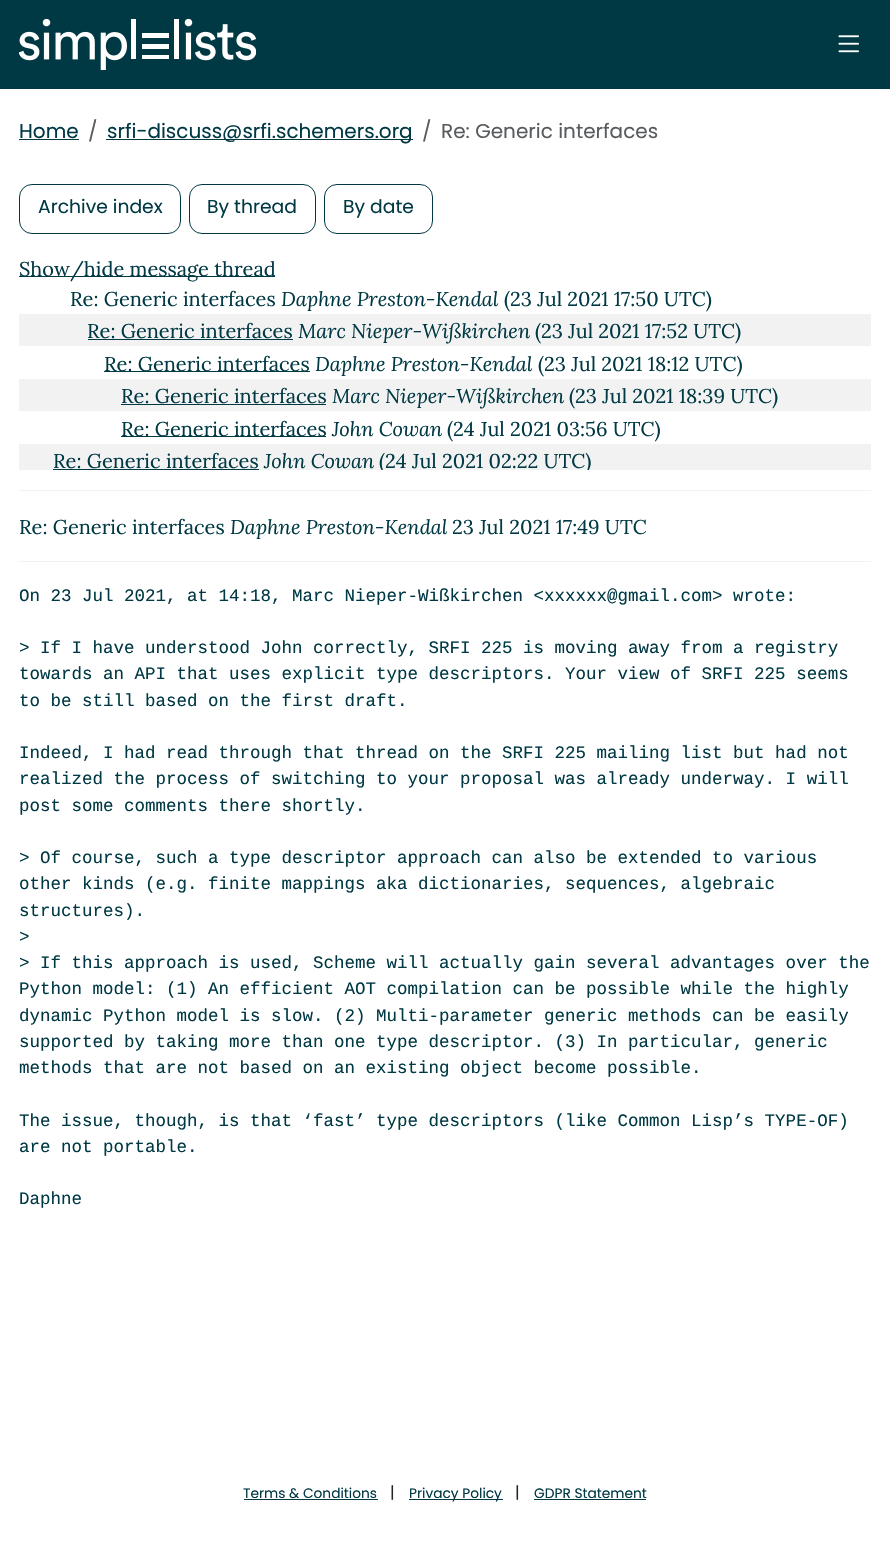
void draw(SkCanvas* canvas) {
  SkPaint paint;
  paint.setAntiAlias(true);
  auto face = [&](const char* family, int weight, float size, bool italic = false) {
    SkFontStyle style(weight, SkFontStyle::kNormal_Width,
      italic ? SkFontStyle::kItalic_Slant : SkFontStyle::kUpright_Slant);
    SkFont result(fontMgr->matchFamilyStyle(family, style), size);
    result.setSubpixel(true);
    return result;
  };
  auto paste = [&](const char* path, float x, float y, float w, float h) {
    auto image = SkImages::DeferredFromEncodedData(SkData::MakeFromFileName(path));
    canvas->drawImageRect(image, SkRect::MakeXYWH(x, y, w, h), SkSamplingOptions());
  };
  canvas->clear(0xffffffff);
  paint.setColor(0xff003944);
  canvas->drawRect(SkRect::MakeXYWH(0, 0, 890, 89), paint);
  paste("img/1.png", 19, 19, 237, 51);
  paste("img/2.png", 838, 35, 21, 18);
  canvas->drawRect(SkRect::MakeXYWH(19, 139, 60, 1), paint);
  canvas->drawRect(SkRect::MakeXYWH(106, 139, 307, 1), paint);
  paint.setStroke(true);
  paint.setStrokeWidth(1);
  canvas->drawRoundRect(SkRect::MakeXYWH(19.5f, 184.5f, 161, 49), 12.5f, 12.5f, paint);
  canvas->drawRoundRect(SkRect::MakeXYWH(189.5f, 184.5f, 126, 49), 12.5f, 12.5f, paint);
  canvas->drawRoundRect(SkRect::MakeXYWH(324.5f, 184.5f, 108, 49), 12.5f, 12.5f, paint);
  paint.setStroke(false);
  {
    const struct { float x, y, w, h; SkColor color; } items[] = {
      {19, 276, 256, 1, 0xff003944},
      {19, 314, 852, 32, 0xfff2f2f2},
      {88, 339, 205, 1, 0xff003944},
      {104, 371, 206, 1, 0xff003944},
      {19, 379, 852, 32, 0xfff2f2f2},
      {121, 404, 205, 1, 0xff003944},
      {121, 436, 205, 1, 0xff003944},
      {19, 444, 852, 26, 0xfff2f2f2},
      {53, 469, 206, 1, 0xff003944},
      {19, 490, 852, 1, 0xfff2f2f2},
      {19, 561, 852, 1, 0xfff2f2f2},
      {244, 1499, 134, 1, 0xff003944},
      {409, 1499, 94, 1, 0xff003944},
      {534, 1499, 112, 1, 0xff003944},
    };
    for (auto [x, y, w, h, color] : items) {
      paint.setColor(color);
      canvas->drawRect(SkRect::MakeXYWH(x, y, w, h), paint);
    }
  }
  auto f0 = face("Poppins", 400, 20);
  canvas->drawString("Home", 19, 138, f0, paint);
  paint.setColor(0xff595c5f);
  canvas->drawString("/", 88, 138, f0, paint);
  paint.setColor(0xff003944);
  canvas->drawString("srfi-discuss@srfi.schemers.org", 107, 138, f0, paint);
  paint.setColor(0xff595c5f);
  canvas->drawString("/", 422, 138, f0, paint);
  canvas->drawString("Re: Generic interfaces", 441, 138, f0, paint);
  auto f1 = face("Poppins", 400, 18.75f);
  paint.setColor(0xff003944);
  {
    const struct { const char* s; float x, y; } items[] = {
      {"Archive index", 38, 213},
      {"By thread", 207, 213},
      {"By date", 343, 213},
    };
    for (auto [s, x, y] : items) {
      canvas->drawString(s, x, y, f1, paint);
    }
  }
  auto f2 = face("Lora", 400, 20);
  canvas->drawString("Show/hide message thread", 19, 276, f2, paint);
  canvas->drawString("Re: Generic interfaces", 70, 306, f2, paint);
  auto f3 = face("Lora", 400, 20, true);
  canvas->drawString("Daphne Preston-Kendal", 281, 306, f3, paint);
  canvas->drawString("(23 Jul 2021 17:50 UTC)", 504, 306, f2, paint);
  canvas->drawString("Re: Generic interfaces", 87, 338, f2, paint);
  canvas->drawString("Marc Nieper-Wißkirchen", 298, 338, f3, paint);
  canvas->drawString("(23 Jul 2021 17:52 UTC)", 535, 338, f2, paint);
  canvas->drawString("Re: Generic interfaces", 104, 371, f2, paint);
  canvas->drawString("Daphne Preston-Kendal", 315, 371, f3, paint);
  canvas->drawString("(23 Jul 2021 18:12 UTC)", 538, 371, f2, paint);
  canvas->drawString("Re: Generic interfaces", 121, 403, f2, paint);
  canvas->drawString("Marc Nieper-Wißkirchen", 332, 403, f3, paint);
  canvas->drawString("(23 Jul 2021 18:39 UTC)", 569, 403, f2, paint);
  canvas->drawString("Re: Generic interfaces", 121, 436, f2, paint);
  canvas->drawString("John Cowan", 332, 436, f3, paint);
  canvas->drawString("(24 Jul 2021 03:56 UTC)", 447, 436, f2, paint);
  canvas->drawString("Re: Generic interfaces", 53, 468, f2, paint);
  canvas->drawString("John Cowan", 264, 468, f3, paint);
  canvas->save();
  canvas->clipRect(SkRect::MakeXYWH(53, 445, 817, 25));
  canvas->drawString("(24 Jul 2021 02:22 UTC)", 379, 468, f2, paint);
  canvas->restore();
  canvas->drawString("Re: Generic interfaces", 19, 534, f2, paint);
  canvas->drawString("Daphne Preston-Kendal", 230, 534, f3, paint);
  canvas->drawString("23 Jul 2021 17:49 UTC", 452, 534, f2, paint);
  auto f4 = face("Liberation Mono", 400, 17.5f);
  {
    const struct { const char* s; float x, y; } items[] = {
      {"On 23 Jul 2021, at 14:18, Marc Nieper-Wißkirchen <xxxxxx@gmail.com> wrote:", 19, 601},
      {"> If I have understood John correctly, SRFI 225 is moving away from a registry", 19, 653},
      {"towards an API that uses explicit type descriptors. Your view of SRFI 225 seems", 19, 679},
      {"to be still based on the first draft.", 19, 706},
      {"Indeed, I had read through that thread on the SRFI 225 mailing list but had not", 19, 758},
      {"realized the process of switching to your proposal was already underway. I will", 19, 784},
      {"post some comments there shortly.", 19, 811},
      {"> Of course, such a type descriptor approach can also be extended to various", 19, 863},
      {"other kinds (e.g. finite mappings aka dictionaries, sequences, algebraic", 19, 889},
      {"structures).", 19, 916},
      {">", 19, 942},
      {"> If this approach is used, Scheme will actually gain several advantages over the", 19, 968},
      {"Python model: (1) An efficient AOT compilation can be possible while the highly", 19, 994},
      {"dynamic Python model is slow. (2) Multi-parameter generic methods can be easily", 19, 1021},
      {"supported by taking more than one type descriptor. (3) In particular, generic", 19, 1047},
      {"methods that are not based on an existing object become possible.", 19, 1073},
      {"The issue, though, is that ‘fast’ type descriptors (like Common Lisp’s TYPE-OF)", 19, 1126},
      {"are not portable.", 19, 1152},
      {"Daphne", 19, 1204},
    };
    for (auto [s, x, y] : items) {
      canvas->drawString(s, x, y, f4, paint);
    }
  }
  auto f5 = face("Poppins", 400, 13.75f);
  canvas->drawString("Terms & Conditions", 243, 1498, f5, paint);
  auto f6 = face("Poppins", 400, 16);
  paint.setColor(0xff212529);
  canvas->drawString("|", 390, 1498, f6, paint);
  paint.setColor(0xff003944);
  canvas->drawString("Privacy Policy", 409, 1498, f5, paint);
  paint.setColor(0xff212529);
  canvas->drawString("|", 515, 1498, f6, paint);
  paint.setColor(0xff003944);
  canvas->drawString("GDPR Statement", 534, 1498, f5, paint);
}
